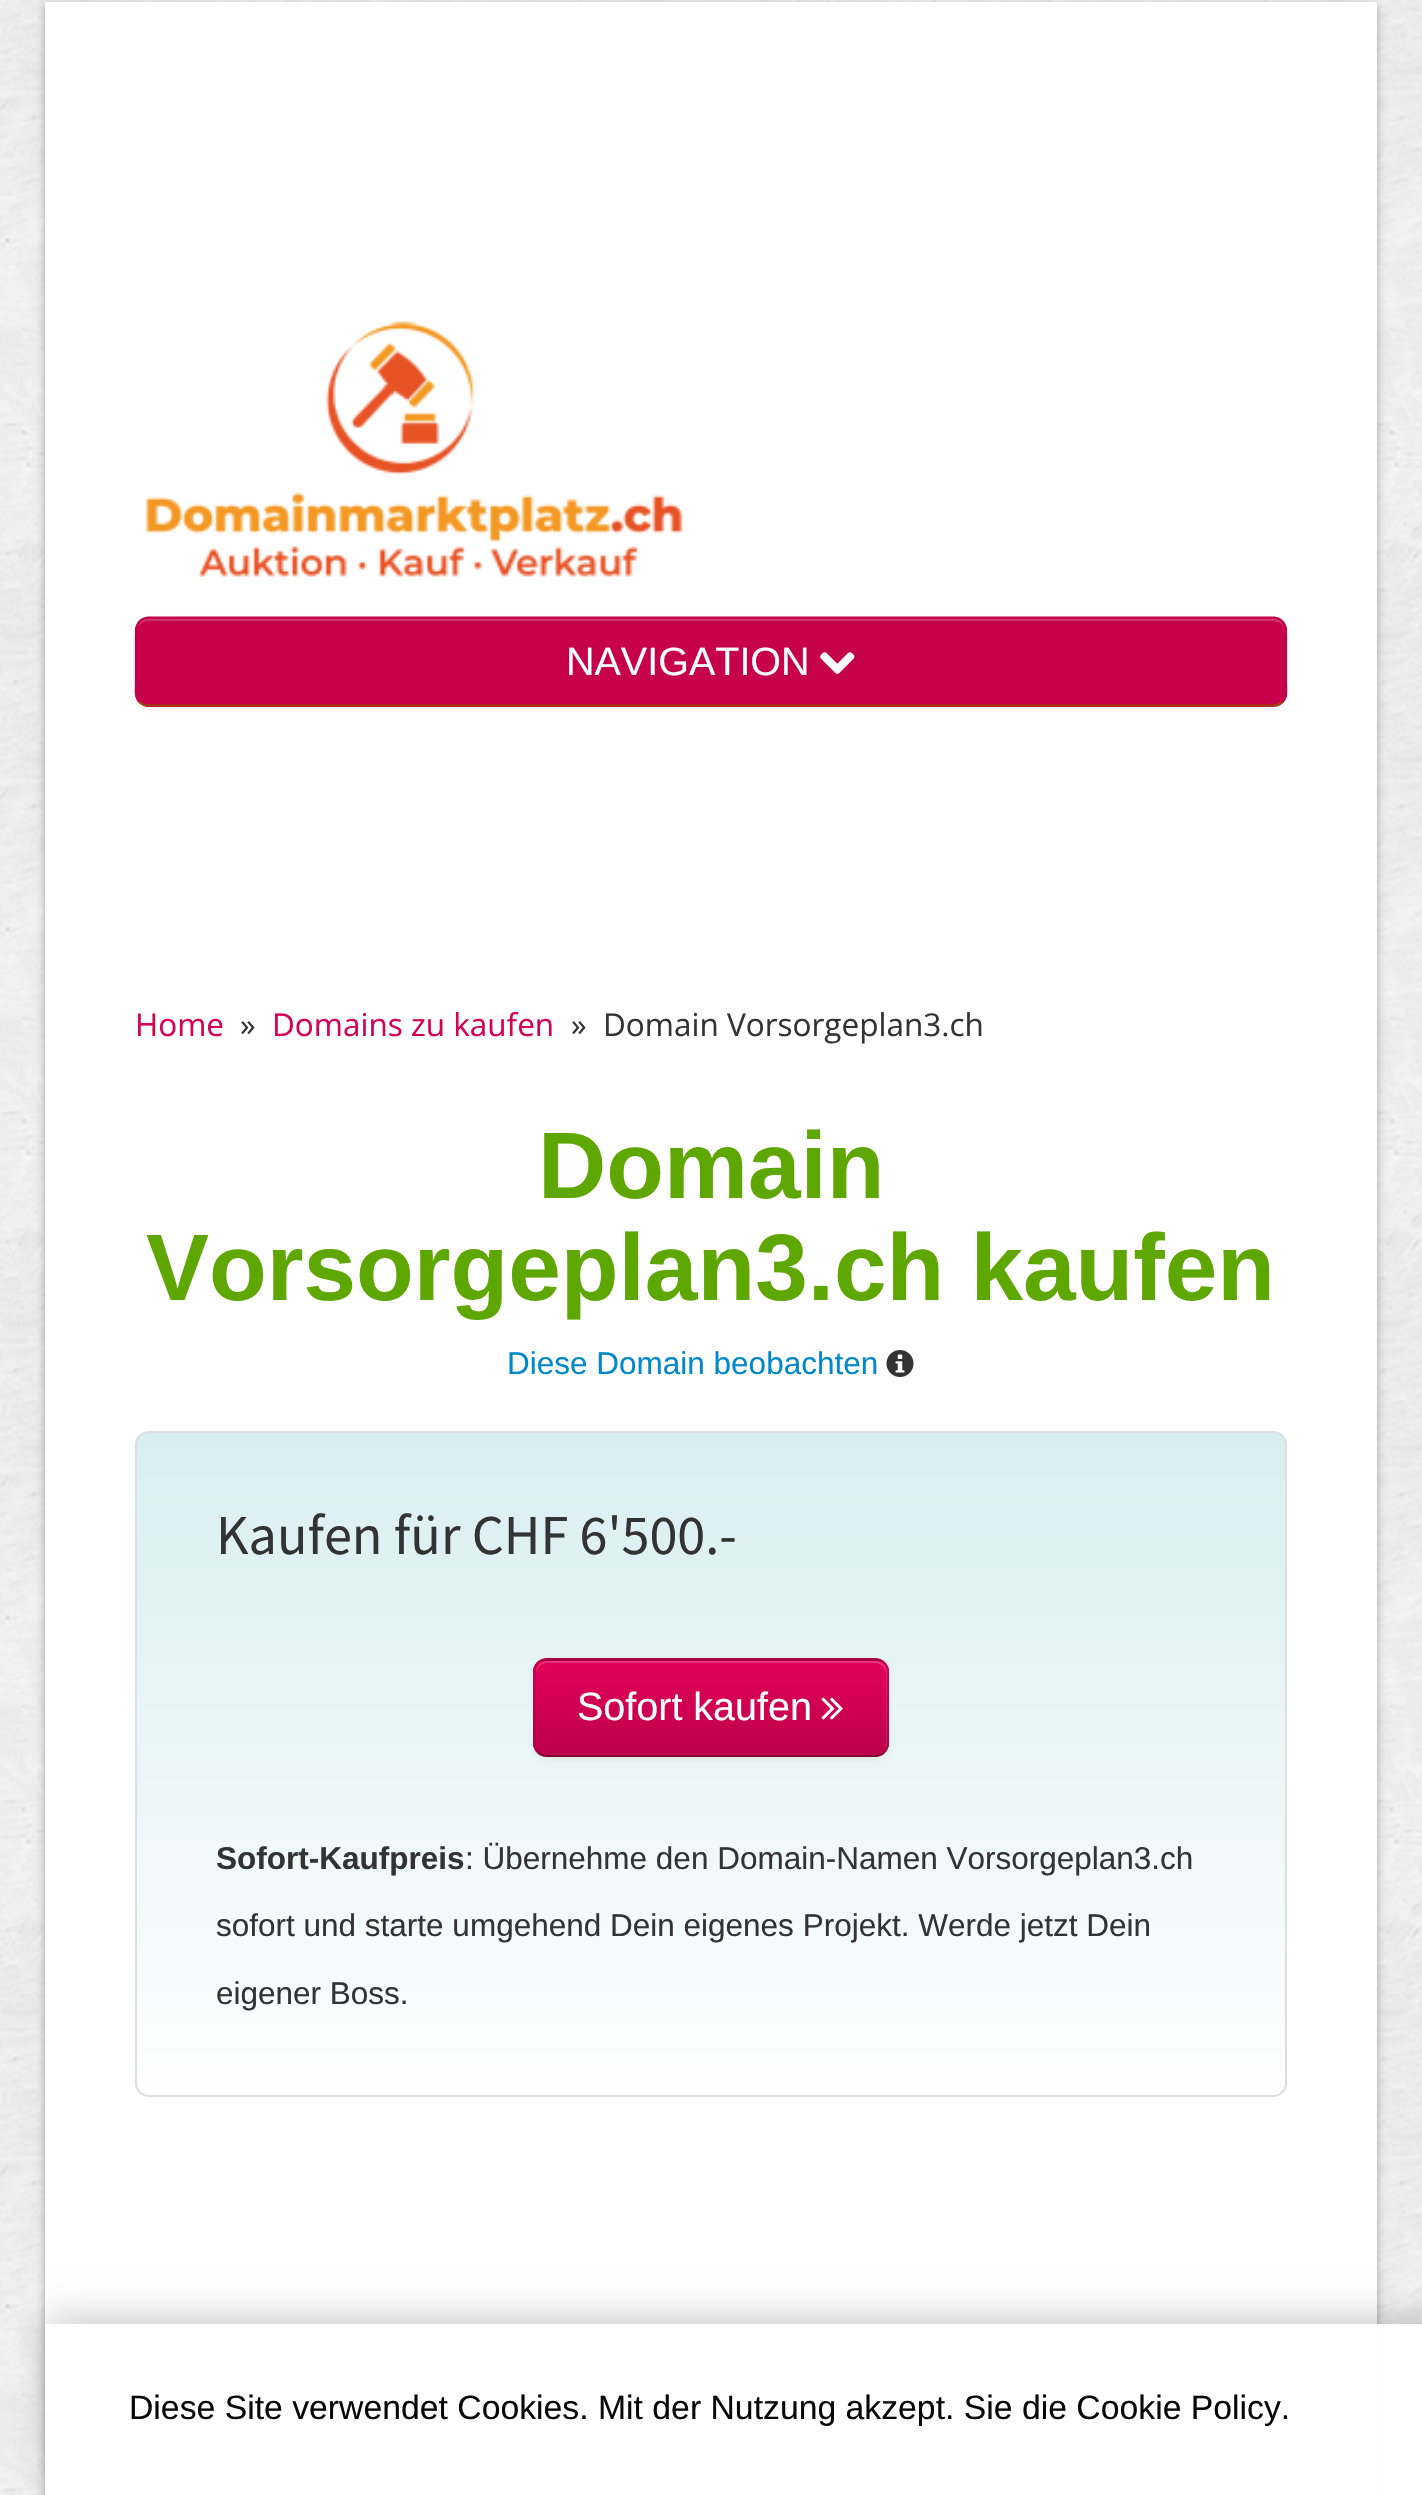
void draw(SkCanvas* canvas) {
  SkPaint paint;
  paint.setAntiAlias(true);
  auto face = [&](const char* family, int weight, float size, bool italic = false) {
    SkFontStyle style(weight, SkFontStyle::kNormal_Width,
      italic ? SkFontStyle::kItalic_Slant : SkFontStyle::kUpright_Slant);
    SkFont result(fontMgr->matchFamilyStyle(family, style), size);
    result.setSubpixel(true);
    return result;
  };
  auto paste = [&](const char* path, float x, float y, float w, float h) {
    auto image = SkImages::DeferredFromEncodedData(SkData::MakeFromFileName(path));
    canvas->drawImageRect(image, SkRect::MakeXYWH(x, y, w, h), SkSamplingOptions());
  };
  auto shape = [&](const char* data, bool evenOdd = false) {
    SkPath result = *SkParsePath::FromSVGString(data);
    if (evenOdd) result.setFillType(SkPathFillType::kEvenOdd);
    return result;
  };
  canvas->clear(0xffffffff);
  paste("img/1.png", 0, 0, 1422, 2495);
  paint.setColor(0x4d000000);
  paint.setMaskFilter(SkMaskFilter::MakeBlur(kNormal_SkBlurStyle, 4.5f));
  canvas->drawRect(SkRect::MakeXYWH(45, 5, 1332, 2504), paint);
  paint.setMaskFilter(nullptr);
  paint.setColor(0xffffffff);
  canvas->drawRect(SkRect::MakeXYWH(45, 2, 1332, 2493), paint);
  paste("img/2.png", 145, 321, 538, 256);
  paint.setColor(0x0d000000);
  paint.setMaskFilter(SkMaskFilter::MakeBlur(kNormal_SkBlurStyle, 2));
  canvas->drawRoundRect(SkRect::MakeXYWH(135, 619, 1152, 90), 14, 14, paint);
  paint.setMaskFilter(nullptr);
  paint.setColor(0xffc6004a);
  canvas->drawRoundRect(SkRect::MakeXYWH(135, 617, 1152, 90), 14, 14, paint);
  canvas->save();
  canvas->clipPath(shape("M149 617H1273C1280.5 617 1287 623.5 1287 631V693C1287 700.5 1280.5 707 1273 707H149C141.5 707 135 700.5 135 693V631C135 623.5 141.5 617 149 617Z"), true);
  canvas->drawRect(SkRect::MakeXYWH(135, 619, 1152, 85), paint);
  canvas->restore();
  paint.setColor(0xffd1336e);
  canvas->drawPath(shape("M148 621H1274C1280 621 1285 626 1285 632C1285 625 1281 619 1274 619H148C141 619 137 625 137 632C137 626 142 621 148 621Z"), paint);
  paint.setStroke(true);
  paint.setStrokeWidth(2.2f);
  paint.setColor(0xff9d4302);
  canvas->drawPath(shape("M1282.5 702C1280 704 1277 705.5 1273.5 705.5H148.5C145 705.5 142 704 139.5 702"), paint);
  paint.setColor(0xffc6004a);
  canvas->drawPath(shape("M139.5 702C134.5 696.5 136 689 136 682.5V640.5C136 631.5 135 619 147.5 617.5H1274.5C1287 619 1286 631.5 1286 640.5V682.5C1286 689 1287.5 696.5 1282.5 702"), paint);
  paste("img/3.png", 820, 652, 35, 22);
  paste("img/4.png", 886, 1350, 28, 27);
  canvas->save();
  canvas->clipPath(shape("M149 1431H1273C1280.5 1431 1287 1437.5 1287 1445V2083C1287 2090.5 1280.5 2097 1273 2097H149C141.5 2097 135 2090.5 135 2083V1445C135 1437.5 141.5 1431 149 1431Z"), true);
  paint.setStroke(false);
  {
    const SkColor colors[] = {0xffd9eef1, 0xfffefefe};
    const float stops[] = {0, 1};
    const SkPoint ends[] = {{711, 1433}, {711, 2095}};
    paint.setShader(SkGradientShader::MakeLinear(ends, colors, stops, 2, SkTileMode::kClamp));
    paint.setAlpha(255);
  }
  canvas->drawRect(SkRect::MakeXYWH(135, 1433, 1152, 662), paint);
  canvas->restore();
  paint.setStroke(true);
  paint.setStrokeWidth(2);
  paint.setShader(nullptr);
  paint.setColor(0xffdddee0);
  canvas->drawRoundRect(SkRect::MakeXYWH(136, 1432, 1150, 664), 13, 13, paint);
  paint.setStroke(false);
  paint.setColor(0x0d000000);
  paint.setMaskFilter(SkMaskFilter::MakeBlur(kNormal_SkBlurStyle, 2));
  canvas->drawRoundRect(SkRect::MakeXYWH(533, 1661, 356, 99), 14, 14, paint);
  paint.setMaskFilter(nullptr);
  paint.setColor(0xffb40249);
  canvas->drawRoundRect(SkRect::MakeXYWH(533, 1658, 356, 99), 14, 14, paint);
  canvas->save();
  canvas->clipPath(shape("M547 1658H875C882.5 1658 889 1664.5 889 1672V1743C889 1750.5 882.5 1757 875 1757H547C539.5 1757 533 1750.5 533 1743V1672C533 1664.5 539.5 1658 547 1658Z"), true);
  {
    const SkColor colors[] = {0xffe2005a, 0xffbc004b};
    const float stops[] = {0, 1};
    const SkPoint ends[] = {{711, 1661}, {711, 1755}};
    paint.setShader(SkGradientShader::MakeLinear(ends, colors, stops, 2, SkTileMode::kClamp));
    paint.setAlpha(255);
  }
  canvas->drawRect(SkRect::MakeXYWH(533, 1661, 356, 94), paint);
  canvas->restore();
  paint.setShader(nullptr);
  paint.setColor(0x33ffffff);
  canvas->drawPath(shape("M547 1663H875C881 1663 886 1668 886 1674V1746L885 1750C886 1748 887 1746 887 1744V1672C887 1666 882 1661 876 1661H547C541 1661 536 1666 536 1672V1674C536 1668 541 1663 547 1663Z"), paint);
  paint.setStroke(true);
  paint.setStrokeWidth(2.2f);
  paint.setColor(0x40000000);
  canvas->drawPath(shape("M884 1752.5C881.5 1755 878.5 1756 875 1756H547C543.5 1756 540.5 1755 538 1752.5"), paint);
  paint.setColor(0x1a000000);
  canvas->drawPath(shape("M538 1752.5C535.5 1750 534.5 1747 534.5 1744V1672C534.5 1668.5 535.5 1665.5 538 1663C540.5 1660.5 543.5 1659.5 547 1659.5H875C878.5 1659.5 881.5 1660.5 884 1663C886.5 1665.5 887.5 1668.5 887.5 1672V1744C887.5 1747 886.5 1750 884 1752.5"), paint);
  paste("img/5.png", 821, 1697, 22, 23);
  canvas->save();
  canvas->clipPath(shape("M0 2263H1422V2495H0ZM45 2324H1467V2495H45Z", true), true);
  paint.setStroke(false);
  paint.setColor(0x2e000000);
  paint.setMaskFilter(SkMaskFilter::MakeBlur(kNormal_SkBlurStyle, 17));
  canvas->drawRect(SkRect::MakeXYWH(47, 2315, 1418, 167), paint);
  paint.setMaskFilter(nullptr);
  canvas->restore();
  paint.setColor(0xf7ffffff);
  canvas->drawRect(SkRect::MakeXYWH(45, 2324, 1377, 171), paint);
  auto f0 = face("Liberation Sans", 400, 39.5f);
  paint.setColor(0xffffffff);
  canvas->drawString("NAVIGATION", 566, 675, f0, paint);
  auto f1 = face("Open Sans", 400, 31.5f);
  paint.setColor(0xffd80056);
  canvas->drawString("Home", 135, 1036, f1, paint);
  paint.setColor(0xff333333);
  canvas->drawString("»", 240, 1036, f1, paint);
  paint.setColor(0xffd80056);
  canvas->drawString("Domains zu kaufen", 272, 1036, f1, paint);
  paint.setColor(0xff333333);
  canvas->drawString("»", 571, 1036, f1, paint);
  canvas->drawString("Domain Vorsorgeplan3.ch", 603, 1036, f1, paint);
  auto f2 = face("Liberation Sans", 700, 94.5f);
  paint.setColor(0xff5ea600);
  canvas->drawString("Domain", 538, 1198, f2, paint);
  canvas->drawString("Vorsorgeplan3.ch kaufen", 146, 1300, f2, paint);
  auto f3 = face("Liberation Sans", 400, 31.5f);
  paint.setColor(0xff0088cc);
  canvas->drawString("Diese Domain beobachten", 507, 1374, f3, paint);
  auto f4 = face("Source Sans Pro", 400, 56.25f);
  paint.setColor(0xff333333);
  canvas->drawString("Kaufen für CHF 6'500.-", 216, 1554, f4, paint);
  paint.setColor(0xffffffff);
  canvas->drawString("Sofort kaufen", 577, 1720, f0, paint);
  auto f5 = face("Liberation Sans", 700, 31.5f);
  paint.setColor(0xff333333);
  canvas->drawString("Sofort-Kaufpreis", 216, 1869, f5, paint);
  {
    const struct { const char* s; float x, y; } items[] = {
      {": Übernehme den Domain-Namen Vorsorgeplan3.ch", 465, 1869},
      {"sofort und starte umgehend Dein eigenes Projekt. Werde jetzt Dein", 216, 1936},
      {"eigener Boss.", 216, 2004},
    };
    for (auto [s, x, y] : items) {
      canvas->drawString(s, x, y, f3, paint);
    }
  }
  auto f6 = face("Liberation Sans", 400, 33.75f);
  paint.setColor(0xff080808);
  canvas->drawString("Diese Site verwendet Cookies. Mit der Nutzung akzept. Sie die Cookie Policy.", 129, 2419, f6, paint);
}
